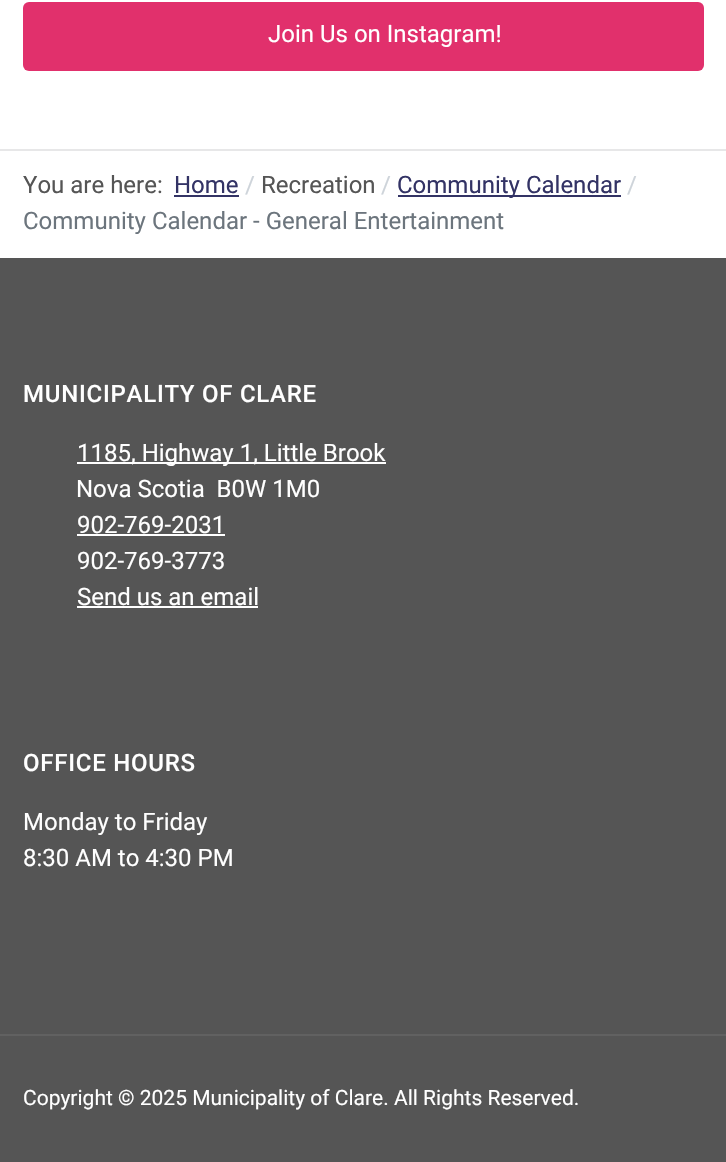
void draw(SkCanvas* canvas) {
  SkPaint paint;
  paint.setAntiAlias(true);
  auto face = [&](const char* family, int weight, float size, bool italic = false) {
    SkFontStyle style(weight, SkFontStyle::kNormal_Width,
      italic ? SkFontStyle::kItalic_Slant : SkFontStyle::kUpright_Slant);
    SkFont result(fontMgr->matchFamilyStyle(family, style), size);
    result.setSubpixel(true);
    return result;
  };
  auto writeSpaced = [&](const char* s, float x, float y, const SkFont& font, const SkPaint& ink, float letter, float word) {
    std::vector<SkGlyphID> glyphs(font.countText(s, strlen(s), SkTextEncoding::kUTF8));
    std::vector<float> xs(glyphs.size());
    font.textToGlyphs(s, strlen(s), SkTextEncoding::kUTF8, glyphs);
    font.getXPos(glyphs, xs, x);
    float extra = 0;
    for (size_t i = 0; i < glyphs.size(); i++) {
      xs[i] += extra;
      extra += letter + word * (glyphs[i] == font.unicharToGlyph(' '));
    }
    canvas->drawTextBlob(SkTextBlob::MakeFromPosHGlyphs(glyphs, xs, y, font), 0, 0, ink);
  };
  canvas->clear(0xffffffff);
  paint.setColor(0xffe1306c);
  canvas->drawRoundRect(SkRect::MakeXYWH(23, 2, 681, 69), 6, 6, paint);
  {
    const struct { float x, y, w, h; SkColor color; } items[] = {
      {0, 149, 726, 2, 0xffe7e7e8},
      {174, 195, 65, 2, 0xff333365},
      {398, 195, 223, 2, 0xff333365},
      {0, 258, 726, 776, 0xff555555},
      {77, 462, 309, 2, 0xffffffff},
      {77, 534, 148, 2, 0xffffffff},
      {77, 606, 181, 2, 0xffffffff},
      {0, 1036, 726, 126, 0xff555555},
      {0, 1034, 726, 2, 0xff616161},
    };
    for (auto [x, y, w, h, color] : items) {
      paint.setColor(color);
      canvas->drawRect(SkRect::MakeXYWH(x, y, w, h), paint);
    }
  }
  auto f0 = face("Roboto", 400, 24);
  paint.setColor(0xffffffff);
  canvas->drawString("Join Us on Instagram!", 268, 42, f0, paint);
  paint.setColor(0xff555555);
  canvas->drawString("You are here:", 23, 193, f0, paint);
  paint.setColor(0xff333365);
  canvas->drawString("Home", 174, 193, f0, paint);
  paint.setColor(0xffced4da);
  canvas->drawString("/", 245, 193, f0, paint);
  paint.setColor(0xff555555);
  canvas->drawString("Recreation", 261, 193, f0, paint);
  paint.setColor(0xffced4da);
  canvas->drawString("/", 381, 193, f0, paint);
  paint.setColor(0xff333365);
  canvas->drawString("Community Calendar", 397, 193, f0, paint);
  paint.setColor(0xffced4da);
  canvas->drawString("/", 627, 193, f0, paint);
  paint.setColor(0xff6c757d);
  canvas->drawString("Community Calendar - General Entertainment", 23, 229, f0, paint);
  auto f1 = face("Roboto", 500, 24);
  paint.setColor(0xffffffff);
  writeSpaced("MUNICIPALITY OF CLARE", 23, 402, f1, paint, 0.75f, 0);
  {
    const struct { const char* s; float x, y; } items[] = {
      {"1185, Highway 1, Little Brook", 77, 461},
      {"Nova Scotia  B0W 1M0", 76, 497},
      {"902-769-2031", 77, 533},
      {"902-769-3773", 77, 569},
      {"Send us an email", 77, 605},
    };
    for (auto [s, x, y] : items) {
      canvas->drawString(s, x, y, f0, paint);
    }
  }
  writeSpaced("OFFICE HOURS", 23, 771, f1, paint, 0.75f, 0);
  canvas->drawString("Monday to Friday", 23, 830, f0, paint);
  canvas->drawString("8:30 AM to 4:30 PM", 23, 866, f0, paint);
  auto f2 = face("Roboto", 400, 21);
  canvas->drawString("Copyright © 2025 Municipality of Clare. All Rights Reserved.", 23, 1105, f2, paint);
}
